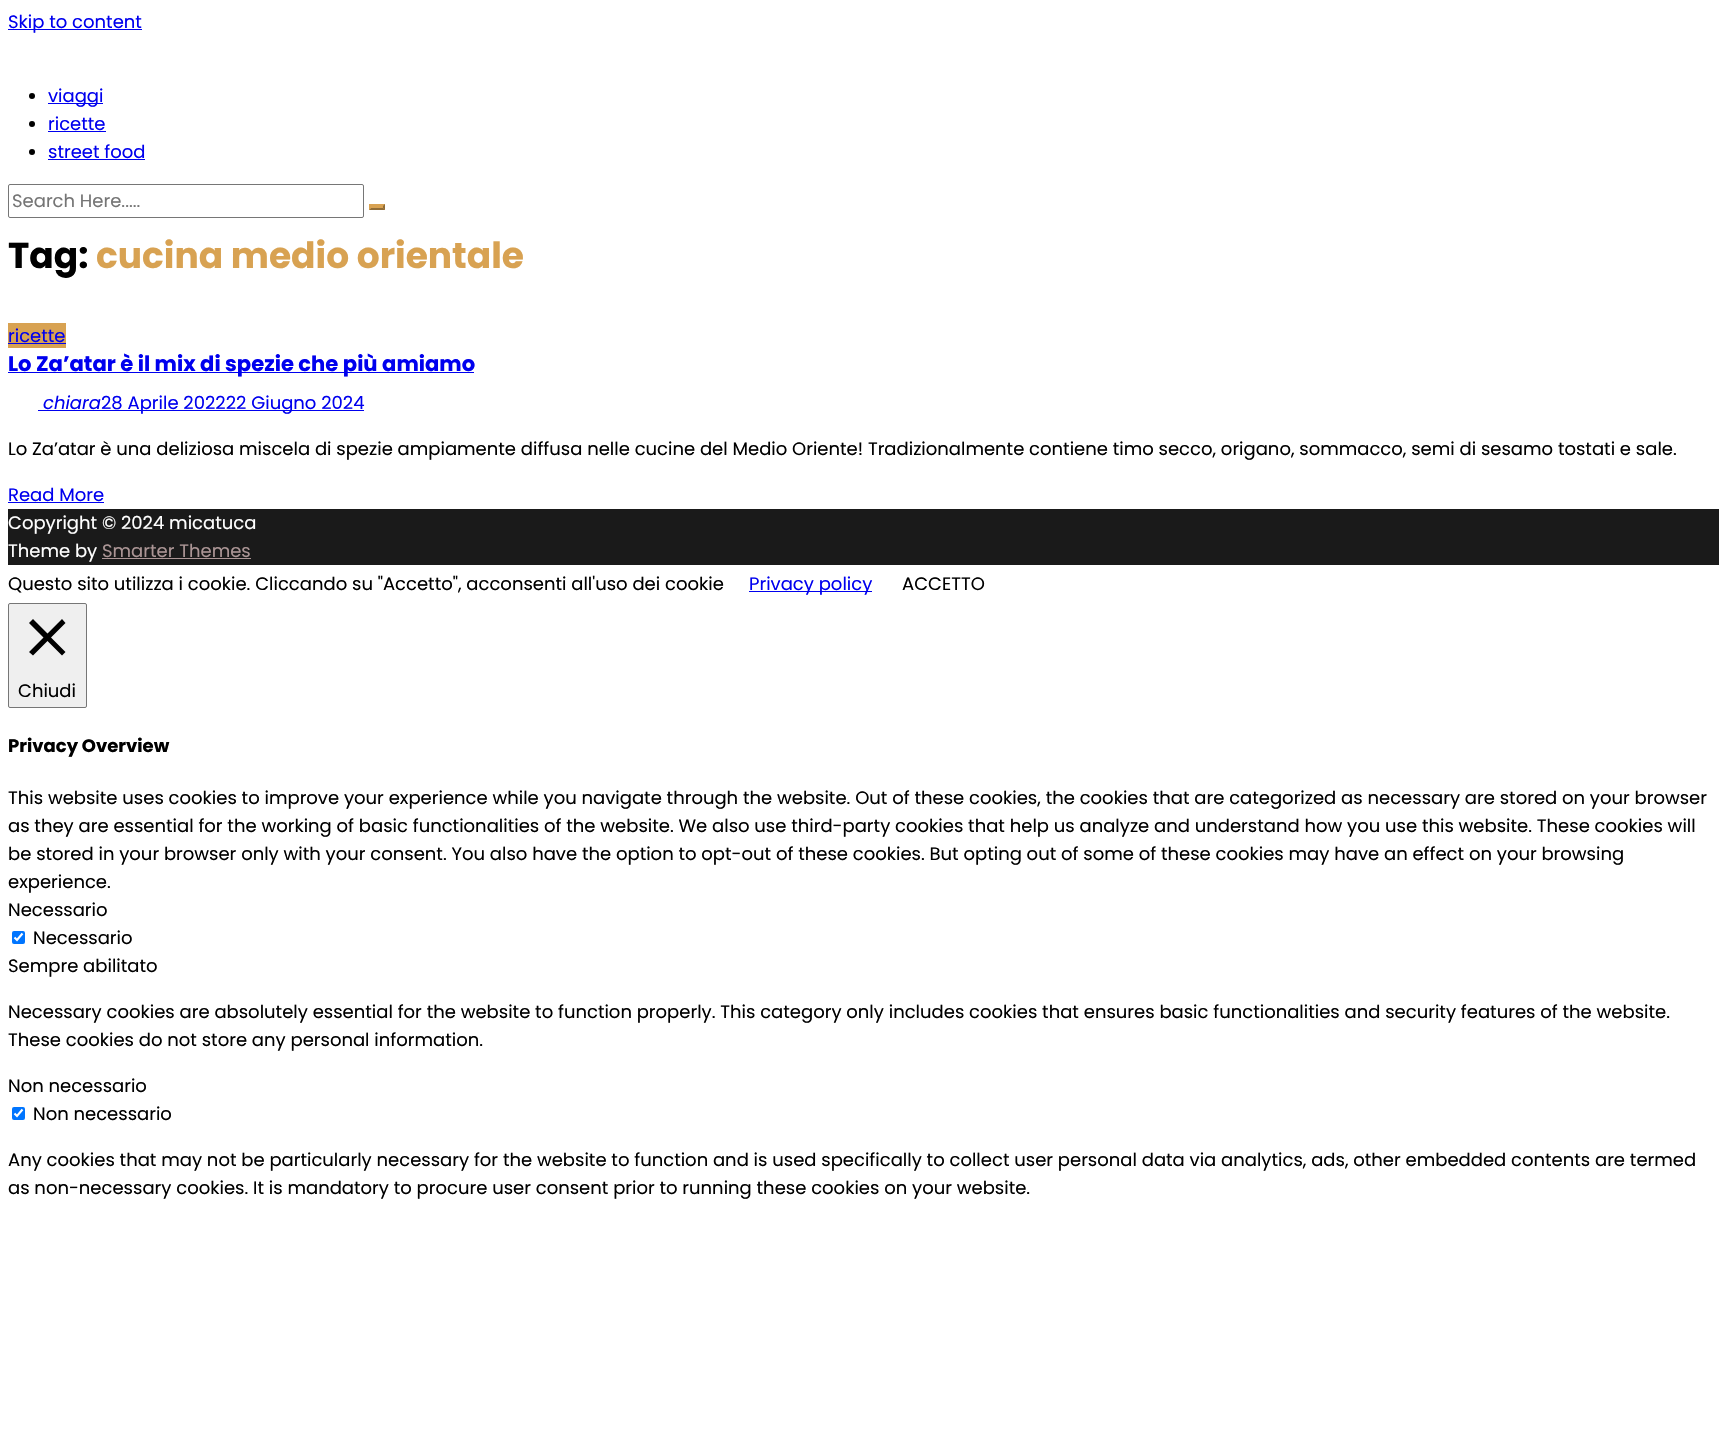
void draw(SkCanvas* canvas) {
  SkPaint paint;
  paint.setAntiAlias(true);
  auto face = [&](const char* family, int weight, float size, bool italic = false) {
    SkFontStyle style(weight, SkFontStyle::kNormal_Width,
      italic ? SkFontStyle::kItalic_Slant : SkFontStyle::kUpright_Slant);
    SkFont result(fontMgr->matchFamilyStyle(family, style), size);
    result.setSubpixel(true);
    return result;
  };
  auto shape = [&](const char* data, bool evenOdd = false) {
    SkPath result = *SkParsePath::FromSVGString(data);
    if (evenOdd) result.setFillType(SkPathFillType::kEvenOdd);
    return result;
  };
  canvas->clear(0xffffffff);
  paint.setColor(0xff0000ee);
  canvas->drawRect(SkRect::MakeXYWH(8, 29, 134, 1), paint);
  paint.setColor(0xff000000);
  canvas->drawCircle(32, 96, 3, paint);
  paint.setColor(0xff0000ee);
  canvas->drawRect(SkRect::MakeXYWH(48, 103, 55, 1), paint);
  paint.setColor(0xff000000);
  canvas->drawCircle(32, 124, 3, paint);
  paint.setColor(0xff0000ee);
  canvas->drawRect(SkRect::MakeXYWH(48, 131, 58, 1), paint);
  paint.setColor(0xff000000);
  canvas->drawCircle(32, 152, 3, paint);
  paint.setColor(0xff0000ee);
  canvas->drawRect(SkRect::MakeXYWH(48, 159, 97, 1), paint);
  paint.setStroke(true);
  paint.setStrokeWidth(1);
  paint.setColor(0xff767676);
  canvas->drawRoundRect(SkRect::MakeXYWH(8.5f, 184.5f, 355, 33), 1.5f, 1.5f, paint);
  paint.setStroke(false);
  paint.setColor(0xffd8a252);
  canvas->drawRect(SkRect::MakeXYWH(369, 204, 16, 6), paint);
  paint.setColor(0xff906c37);
  canvas->drawPath(shape("M385 204V210L383 208V206Z"), paint);
  canvas->drawPath(shape("M385 210H369L371 208H383Z"), paint);
  paint.setColor(0xffd8a252);
  canvas->drawPath(shape("M369 210V204L371 206V208Z"), paint);
  {
    const struct { float x, y, w, h; SkColor color; } items[] = {
      {8, 323, 58, 25, 0xffd8a252},
      {8, 343, 58, 1, 0xff0000ee},
      {8, 372, 466, 1, 0xff0000ee},
      {38, 410, 326, 1, 0xff0000ee},
      {8, 502, 96, 1, 0xff0000ee},
      {8, 509, 1711, 56, 0xff1a1a1a},
      {102, 558, 149, 1, 0xffab9595},
      {749, 591, 123, 1, 0xff0000ee},
    };
    for (auto [x, y, w, h, color] : items) {
      paint.setColor(color);
      canvas->drawRect(SkRect::MakeXYWH(x, y, w, h), paint);
    }
  }
  paint.setColor(0xffefefef);
  canvas->drawRoundRect(SkRect::MakeXYWH(8.5f, 603.5f, 78, 104), 1.5f, 1.5f, paint);
  paint.setStroke(true);
  paint.setColor(0xff767676);
  canvas->drawRoundRect(SkRect::MakeXYWH(8.5f, 603.5f, 78, 104), 1.5f, 1.5f, paint);
  paint.setStroke(false);
  paint.setColor(0xff000000);
  canvas->drawPath(shape("M65.5 623L62 619L47.5 633.5L33 619L29 623L43.5 637.5L29 652L33 655.5L47.5 641L62 655.5L65.5 652L51 637.5Z"), paint);
  paint.setColor(0xff0075ff);
  canvas->drawRoundRect(SkRect::MakeXYWH(12, 931, 13, 13), 2, 2, paint);
  paint.setStroke(true);
  paint.setStrokeWidth(2.1f);
  paint.setColor(0xffffffff);
  canvas->drawPath(shape("M14.5 937.5L17 940L22.5 933.5"), paint);
  paint.setStroke(false);
  paint.setColor(0xff0075ff);
  canvas->drawRoundRect(SkRect::MakeXYWH(12, 1107, 13, 13), 2, 2, paint);
  paint.setStroke(true);
  paint.setColor(0xffffffff);
  canvas->drawPath(shape("M14.5 1113.5L17 1116L22.5 1109.5"), paint);
  auto f0 = face("Poppins", 400, 18);
  paint.setStroke(false);
  paint.setColor(0xff0000ee);
  {
    const struct { const char* s; float x, y; } items[] = {
      {"Skip to content", 8, 28},
      {"viaggi", 48, 102},
      {"ricette", 48, 130},
      {"street food", 48, 158},
    };
    for (auto [s, x, y] : items) {
      canvas->drawString(s, x, y, f0, paint);
    }
  }
  paint.setColor(0xff757575);
  canvas->drawString("Search Here.....", 12, 207, f0, paint);
  auto f1 = face("Poppins", 700, 36);
  paint.setColor(0xff000000);
  canvas->drawString("Tag:", 8, 268, f1, paint);
  paint.setColor(0xffd8a252);
  canvas->drawString("cucina medio orientale", 96, 268, f1, paint);
  paint.setColor(0xff0000ee);
  canvas->drawString("ricette", 8, 342, f0, paint);
  auto f2 = face("Poppins", 700, 21.1f);
  canvas->drawString("Lo Za’atar è il mix di spezie che più amiamo", 8, 371, f2, paint);
  auto f3 = face("Poppins", 400, 18, true);
  canvas->drawString("chiara", 43, 409, f3, paint);
  canvas->drawString("28 Aprile 202222 Giugno 2024", 101, 409, f0, paint);
  paint.setColor(0xff000000);
  canvas->drawString("Lo Za’atar è una deliziosa miscela di spezie ampiamente diffusa nelle cucine del Medio Oriente! Tradizionalmente contiene timo secco, origano, sommacco, semi di sesamo tostati e sale.", 8, 455, f0, paint);
  paint.setColor(0xff0000ee);
  canvas->drawString("Read More", 8, 501, f0, paint);
  paint.setColor(0xffffffff);
  canvas->drawString("Copyright © 2024 micatuca", 8, 529, f0, paint);
  canvas->drawString("Theme by", 8, 557, f0, paint);
  paint.setColor(0xffab9595);
  canvas->drawString("Smarter Themes", 102, 557, f0, paint);
  paint.setColor(0xff000000);
  canvas->drawString("Questo sito utilizza i cookie. Cliccando su \"Accetto\", acconsenti all'uso dei cookie", 8, 590, f0, paint);
  paint.setColor(0xff0000ee);
  canvas->drawString("Privacy policy", 749, 590, f0, paint);
  paint.setColor(0xff000000);
  canvas->drawString("ACCETTO", 902, 590, f0, paint);
  canvas->drawString("Chiudi", 18, 697, f0, paint);
  auto f4 = face("Poppins", 700, 18);
  canvas->drawString("Privacy Overview", 8, 752, f4, paint);
  {
    const struct { const char* s; float x, y; } items[] = {
      {"This website uses cookies to improve your experience while you navigate through the website. Out of these cookies, the cookies that are categorized as necessary are stored on your browser", 8, 804},
      {"as they are essential for the working of basic functionalities of the website. We also use third-party cookies that help us analyze and understand how you use this website. These cookies will", 8, 832},
      {"be stored in your browser only with your consent. You also have the option to opt-out of these cookies. But opting out of some of these cookies may have an effect on your browsing", 8, 860},
      {"experience.", 8, 888},
      {"Necessario", 8, 916},
      {"Necessario", 33, 944},
      {"Sempre abilitato", 8, 972},
      {"Necessary cookies are absolutely essential for the website to function properly. This category only includes cookies that ensures basic functionalities and security features of the website.", 8, 1018},
      {"These cookies do not store any personal information.", 8, 1046},
      {"Non necessario", 8, 1092},
      {"Non necessario", 33, 1120},
      {"Any cookies that may not be particularly necessary for the website to function and is used specifically to collect user personal data via analytics, ads, other embedded contents are termed", 8, 1166},
      {"as non-necessary cookies. It is mandatory to procure user consent prior to running these cookies on your website.", 8, 1194},
    };
    for (auto [s, x, y] : items) {
      canvas->drawString(s, x, y, f0, paint);
    }
  }
}
